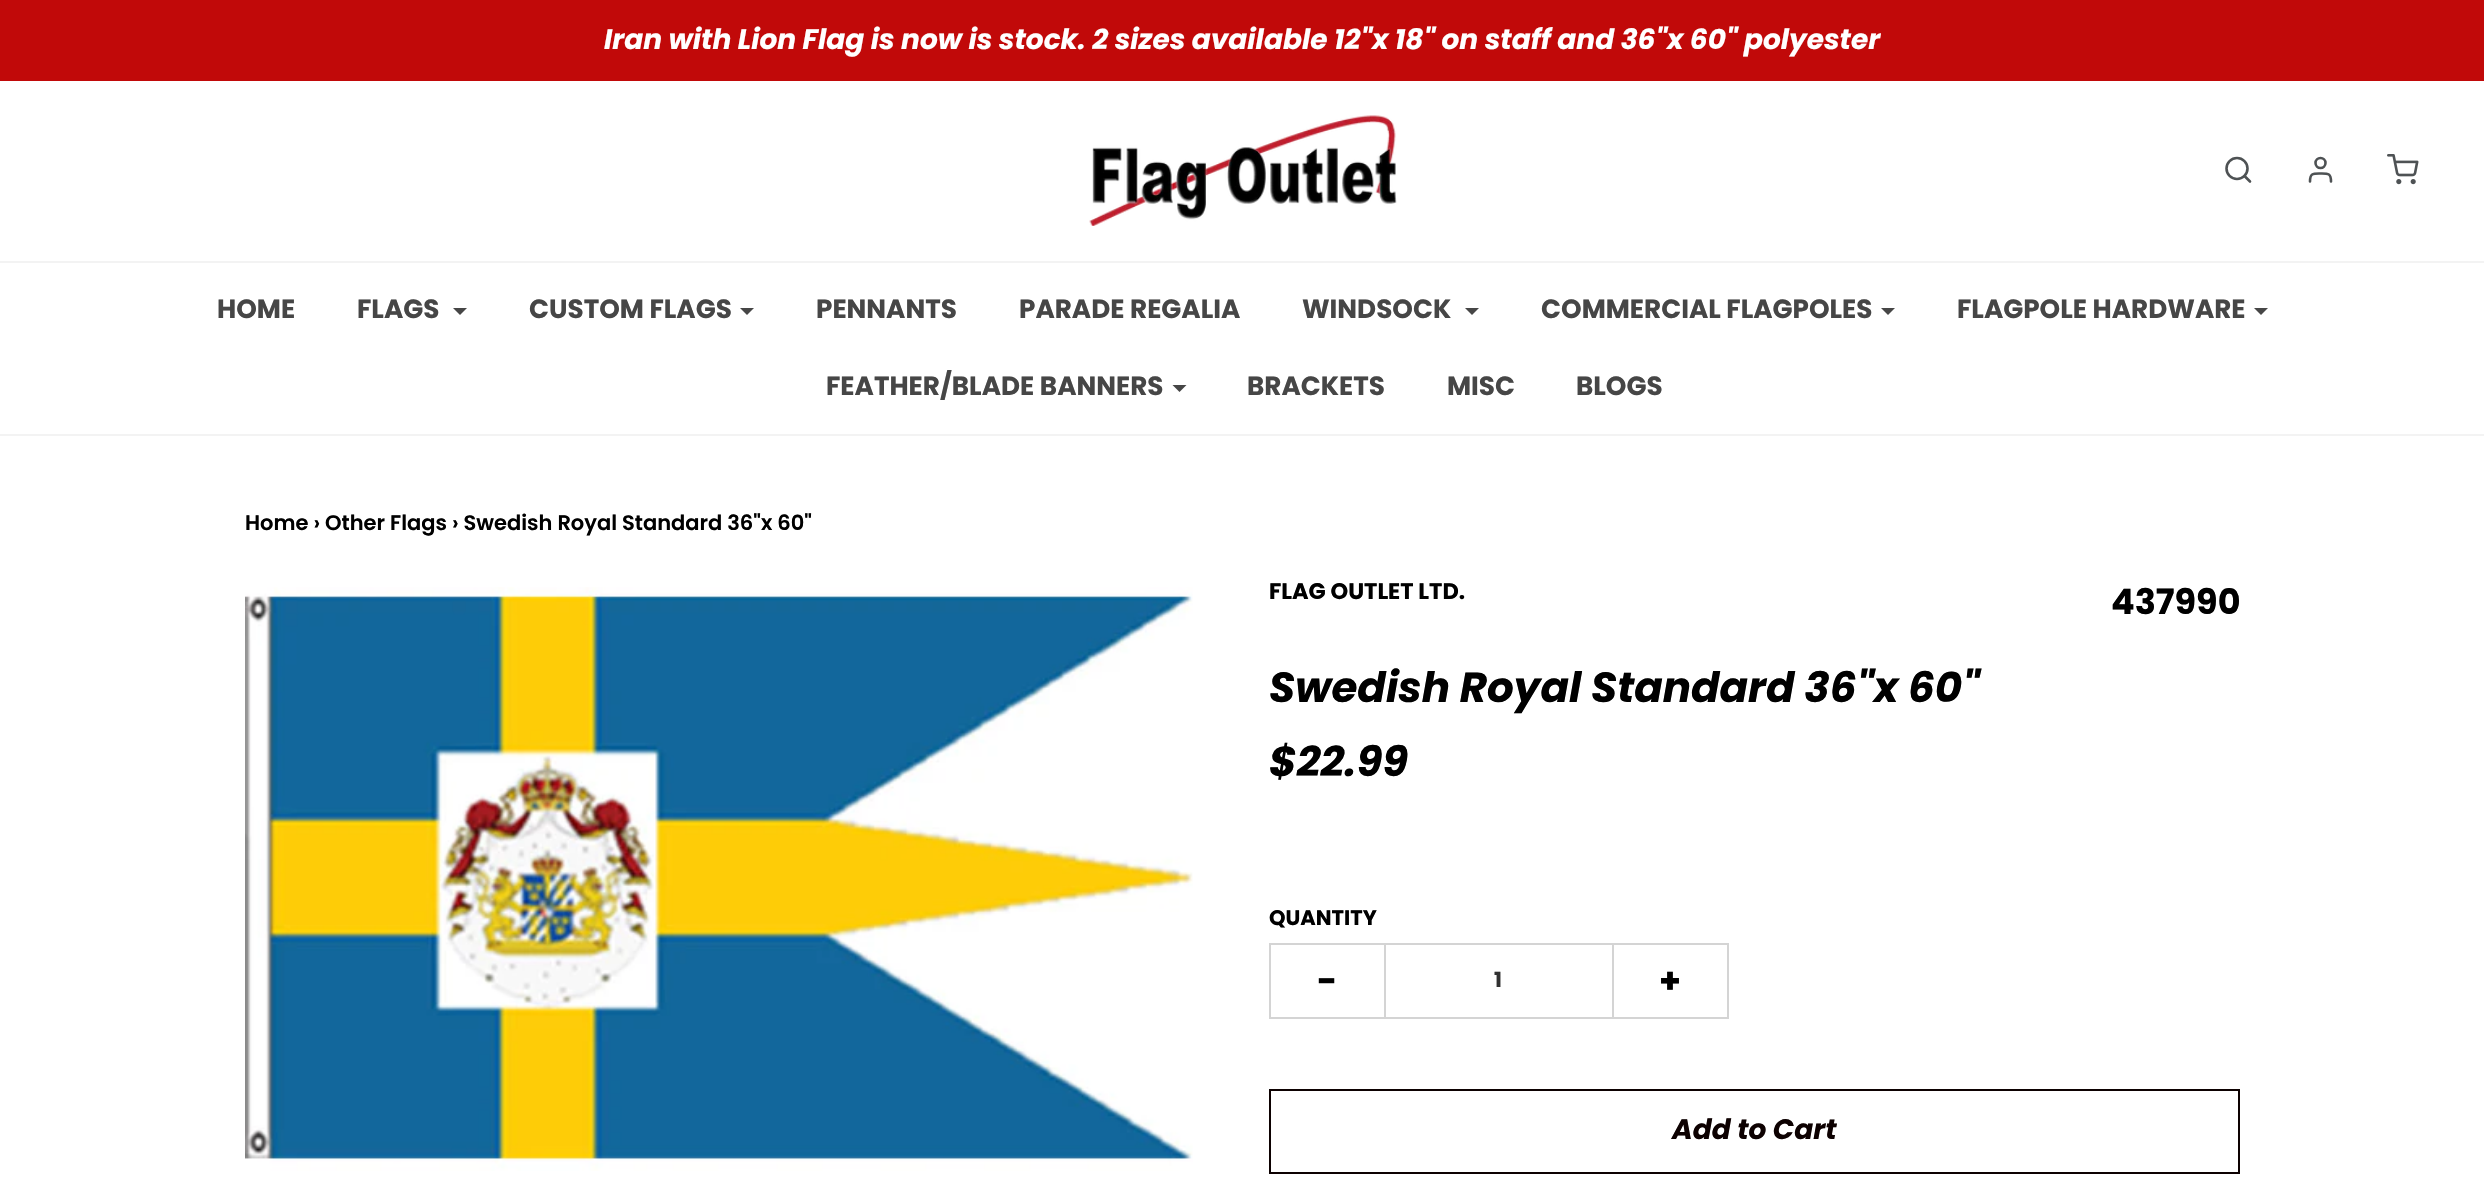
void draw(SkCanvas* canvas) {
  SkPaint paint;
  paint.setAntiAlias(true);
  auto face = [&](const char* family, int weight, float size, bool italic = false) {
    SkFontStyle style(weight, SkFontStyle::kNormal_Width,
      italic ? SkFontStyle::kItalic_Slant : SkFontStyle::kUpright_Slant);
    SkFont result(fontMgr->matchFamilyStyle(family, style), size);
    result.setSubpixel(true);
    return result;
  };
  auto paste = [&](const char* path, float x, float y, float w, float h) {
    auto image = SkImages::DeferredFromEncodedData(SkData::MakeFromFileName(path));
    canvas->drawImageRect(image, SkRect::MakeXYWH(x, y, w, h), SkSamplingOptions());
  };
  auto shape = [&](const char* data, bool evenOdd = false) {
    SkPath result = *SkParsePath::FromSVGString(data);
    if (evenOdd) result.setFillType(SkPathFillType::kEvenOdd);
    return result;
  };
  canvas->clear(0xffffffff);
  paint.setColor(0xffc10909);
  canvas->drawRect(SkRect::MakeXYWH(0, 0, 2484, 81), paint);
  paste("img/1.png", 1089, 115, 308, 111);
  paint.setStroke(true);
  paint.setStrokeWidth(2.6f);
  paint.setColor(0xff4e5254);
  canvas->drawCircle(2237, 168.5f, 10.5f, paint);
  paint.setStrokeCap(SkPaint::kRound_Cap);
  paint.setStrokeJoin(SkPaint::kRound_Join);
  canvas->drawPath(shape("M2250 181.5L2244.5 176"), paint);
  canvas->drawPath(shape("M2331 181.5C2331 173 2328 173.5 2320.5 173.5C2313 173.5 2310 173 2310 181.5"), paint);
  paint.setStrokeCap(SkPaint::kButt_Cap);
  paint.setStrokeJoin(SkPaint::kMiter_Join);
  canvas->drawCircle(2320.5f, 163, 5, paint);
  paste("img/2.png", 2387, 154, 32, 31);
  paint.setStroke(false);
  paint.setColor(0xfff3f3f3);
  canvas->drawRect(SkRect::MakeXYWH(0, 261, 2484, 2), paint);
  canvas->drawRect(SkRect::MakeXYWH(0, 434, 2484, 2), paint);
  paint.setColor(0xff464646);
  canvas->drawPath(shape("M453 308H467L460 315Z"), paint);
  canvas->drawPath(shape("M740 308H754L747 315Z"), paint);
  canvas->drawPath(shape("M1465 308H1479L1472 315Z"), paint);
  canvas->drawPath(shape("M1881 308H1895L1888 315Z"), paint);
  canvas->drawPath(shape("M2254 308H2268L2261 315Z"), paint);
  canvas->drawPath(shape("M1172.5 385H1186.5L1179.5 392Z"), paint);
  paste("img/3.png", 245, 587, 948, 584);
  {
    const struct { float x, y, w, h; SkColor color; } items[] = {
      {1269, 943, 115, 2, 0xffd4d4d4},
      {1269, 1017, 115, 2, 0xffd4d4d4},
      {1269, 943, 2, 76, 0xffd4d4d4},
    };
    for (auto [x, y, w, h, color] : items) {
      paint.setColor(color);
      canvas->drawRect(SkRect::MakeXYWH(x, y, w, h), paint);
    }
  }
  paint.setStroke(true);
  paint.setStrokeWidth(2);
  canvas->drawRect(SkRect::MakeXYWH(1385, 944, 228, 74), paint);
  paint.setStroke(false);
  {
    const struct { float x, y, w, h; SkColor color; } items[] = {
      {1614, 943, 115, 2, 0xffd4d4d4},
      {1727, 943, 2, 76, 0xffd4d4d4},
      {1614, 1017, 115, 2, 0xffd4d4d4},
    };
    for (auto [x, y, w, h, color] : items) {
      paint.setColor(color);
      canvas->drawRect(SkRect::MakeXYWH(x, y, w, h), paint);
    }
  }
  paint.setStroke(true);
  paint.setColor(0xff0d0101);
  canvas->drawRect(SkRect::MakeXYWH(1270, 1090, 969, 83), paint);
  auto f0 = face("Poppins", 700, 28, true);
  paint.setStroke(false);
  paint.setColor(0xffffffff);
  canvas->drawString("Iran with Lion Flag is now is stock. 2 sizes available 12\"x 18\" on staff and 36\"x 60\" polyester", 604, 49, f0, paint);
  auto f1 = face("Poppins", 700, 26.25f);
  paint.setColor(0xff464646);
  {
    const struct { const char* s; float x, y; } items[] = {
      {"HOME", 217, 318},
      {"FLAGS", 357, 318},
      {"CUSTOM FLAGS", 529, 318},
      {"PENNANTS", 816, 318},
      {"PARADE REGALIA", 1019, 318},
      {"WINDSOCK", 1302, 318},
      {"COMMERCIAL FLAGPOLES", 1541, 318},
      {"FLAGPOLE HARDWARE", 1957, 318},
      {"FEATHER/BLADE BANNERS", 826, 395},
      {"BRACKETS", 1247, 395},
      {"MISC", 1447, 395},
      {"BLOGS", 1576, 395},
    };
    for (auto [s, x, y] : items) {
      canvas->drawString(s, x, y, f1, paint);
    }
  }
  auto f2 = face("Poppins", 600, 21);
  paint.setColor(0xff000000);
  canvas->drawString("Home › Other Flags › Swedish Royal Standard 36\"x 60\"", 245, 530, f2, paint);
  auto f3 = face("Poppins", 700, 22.5f);
  canvas->drawString("FLAG OUTLET LTD.", 1269, 599, f3, paint);
  auto f4 = face("Poppins", 700, 35);
  canvas->drawString("437990", 2111, 614, f4, paint);
  auto f5 = face("Poppins", 700, 42, true);
  canvas->drawString("Swedish Royal Standard 36\"x 60\"", 1269, 702, f5, paint);
  canvas->drawString("$22.99", 1269, 776, f5, paint);
  auto f6 = face("Poppins", 700, 21);
  canvas->drawString("QUANTITY", 1269, 925, f6, paint);
  canvas->drawString("-", 1317, 993, f4, paint);
  paint.setColor(0xff313131);
  canvas->drawString("1", 1494, 987, f6, paint);
  paint.setColor(0xff000000);
  canvas->drawString("+", 1659, 993, f4, paint);
  paint.setColor(0xff0d0101);
  canvas->drawString("Add to Cart", 1672, 1139, f0, paint);
}
